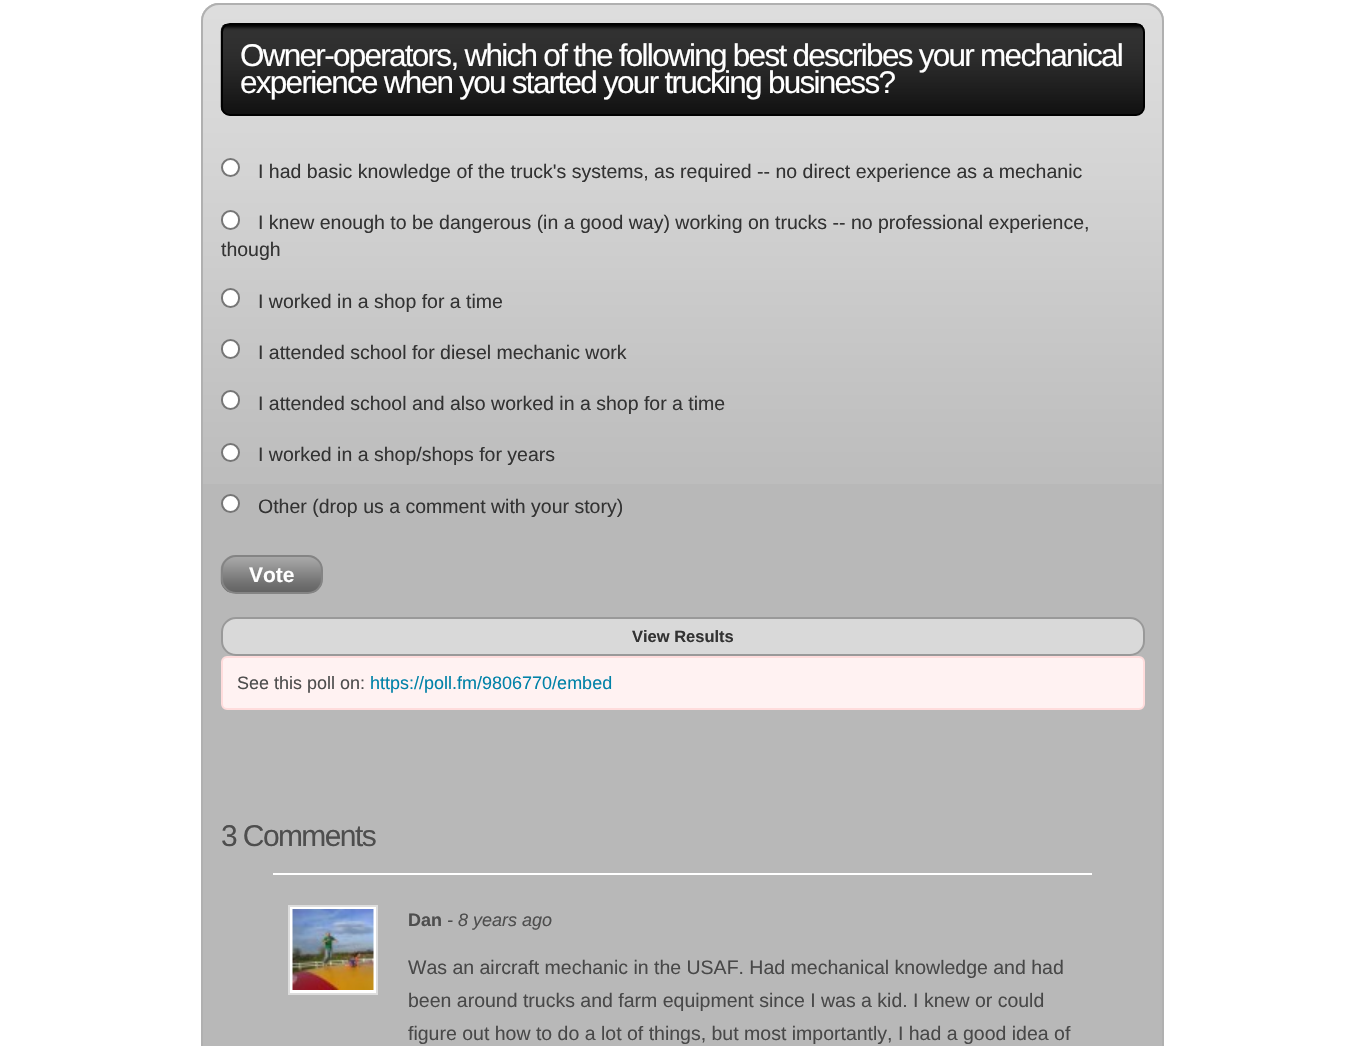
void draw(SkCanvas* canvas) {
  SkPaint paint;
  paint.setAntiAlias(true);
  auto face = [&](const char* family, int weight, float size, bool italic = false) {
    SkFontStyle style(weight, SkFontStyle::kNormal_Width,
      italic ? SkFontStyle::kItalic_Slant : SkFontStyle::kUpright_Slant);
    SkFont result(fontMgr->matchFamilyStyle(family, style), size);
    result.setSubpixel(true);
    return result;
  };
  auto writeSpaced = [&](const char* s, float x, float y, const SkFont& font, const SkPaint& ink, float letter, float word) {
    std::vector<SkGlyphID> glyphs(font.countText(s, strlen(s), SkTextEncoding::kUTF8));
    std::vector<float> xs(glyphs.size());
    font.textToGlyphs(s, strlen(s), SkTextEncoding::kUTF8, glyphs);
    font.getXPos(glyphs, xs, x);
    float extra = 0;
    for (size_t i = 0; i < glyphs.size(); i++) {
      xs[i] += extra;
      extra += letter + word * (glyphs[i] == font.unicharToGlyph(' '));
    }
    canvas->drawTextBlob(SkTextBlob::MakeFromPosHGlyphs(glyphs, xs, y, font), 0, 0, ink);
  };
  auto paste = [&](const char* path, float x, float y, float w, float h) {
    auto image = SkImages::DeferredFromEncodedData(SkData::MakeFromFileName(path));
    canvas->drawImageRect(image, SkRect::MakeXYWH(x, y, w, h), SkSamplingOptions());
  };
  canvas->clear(0xffffffff);
  paint.setColor(0xffb8b8b8);
  canvas->drawRoundRect(SkRect::MakeXYWH(201, 3, 963, 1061), 18, 18, paint);
  paste("img/1.png", 201, 4, 963, 480);
  paint.setStroke(true);
  paint.setStrokeWidth(2);
  paint.setColor(0xffb0b0b0);
  canvas->drawRoundRect(SkRect::MakeXYWH(202, 4, 961, 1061), 17, 17, paint);
  paste("img/2.png", 220, 24, 925, 92);
  paint.setColor(0xff000000);
  canvas->drawRoundRect(SkRect::MakeXYWH(222, 24, 922, 91), 8, 8, paint);
  paint.setStroke(false);
  paint.setColor(0xffffffff);
  canvas->drawCircle(230.5f, 167.5f, 8.5f, paint);
  paint.setStroke(true);
  paint.setColor(0xff767676);
  canvas->drawCircle(230.5f, 167.5f, 8.5f, paint);
  paint.setStroke(false);
  paint.setColor(0xffffffff);
  canvas->drawRoundRect(SkRect::MakeXYWH(222, 211, 17, 18), 8.5f, 8.5f, paint);
  paint.setStroke(true);
  paint.setColor(0xff767676);
  canvas->drawRoundRect(SkRect::MakeXYWH(222, 211, 17, 18), 8.5f, 8.5f, paint);
  paint.setStroke(false);
  paint.setColor(0xffffffff);
  canvas->drawRoundRect(SkRect::MakeXYWH(222, 289, 17, 18), 8.5f, 8.5f, paint);
  paint.setStroke(true);
  paint.setColor(0xff767676);
  canvas->drawRoundRect(SkRect::MakeXYWH(222, 289, 17, 18), 8.5f, 8.5f, paint);
  paint.setStroke(false);
  paint.setColor(0xffffffff);
  canvas->drawRoundRect(SkRect::MakeXYWH(222, 340, 17, 18), 8.5f, 8.5f, paint);
  paint.setStroke(true);
  paint.setColor(0xff767676);
  canvas->drawRoundRect(SkRect::MakeXYWH(222, 340, 17, 18), 8.5f, 8.5f, paint);
  paint.setStroke(false);
  paint.setColor(0xffffffff);
  canvas->drawRoundRect(SkRect::MakeXYWH(222, 391, 17, 18), 8.5f, 8.5f, paint);
  paint.setStroke(true);
  paint.setColor(0xff767676);
  canvas->drawRoundRect(SkRect::MakeXYWH(222, 391, 17, 18), 8.5f, 8.5f, paint);
  paint.setStroke(false);
  paint.setColor(0xffffffff);
  canvas->drawCircle(230.5f, 452.5f, 8.5f, paint);
  paint.setStroke(true);
  paint.setColor(0xff767676);
  canvas->drawCircle(230.5f, 452.5f, 8.5f, paint);
  paint.setStroke(false);
  paint.setColor(0xffffffff);
  canvas->drawCircle(230.5f, 503.5f, 8.5f, paint);
  paint.setStroke(true);
  paint.setColor(0xff767676);
  canvas->drawCircle(230.5f, 503.5f, 8.5f, paint);
  paste("img/3.png", 220, 555, 103, 38);
  paint.setColor(0xff848484);
  canvas->drawRoundRect(SkRect::MakeXYWH(222, 556, 100, 37), 14, 14, paint);
  paint.setStroke(false);
  paint.setColor(0xffd9d9d9);
  canvas->drawRoundRect(SkRect::MakeXYWH(222, 618, 922, 37), 14, 14, paint);
  paint.setStroke(true);
  paint.setColor(0xff999999);
  canvas->drawRoundRect(SkRect::MakeXYWH(222, 618, 922, 37), 14, 14, paint);
  paint.setStroke(false);
  paint.setColor(0xfffff2f2);
  canvas->drawRoundRect(SkRect::MakeXYWH(222, 657, 922, 52), 5, 5, paint);
  paint.setStroke(true);
  paint.setColor(0xffffdcdc);
  canvas->drawRoundRect(SkRect::MakeXYWH(222, 657, 922, 52), 5, 5, paint);
  paint.setStroke(false);
  paint.setColor(0xffffffff);
  canvas->drawRect(SkRect::MakeXYWH(273, 873, 819, 2), paint);
  canvas->drawRect(SkRect::MakeXYWH(289, 906, 88, 88), paint);
  paint.setStroke(true);
  paint.setColor(0xffdddddd);
  canvas->drawRect(SkRect::MakeXYWH(289, 906, 88, 88), paint);
  paste("img/4.png", 292, 909, 82, 81);
  auto f0 = face("Liberation Sans", 400, 31.5f);
  paint.setStroke(false);
  paint.setColor(0xffffffff);
  writeSpaced("Owner-operators, which of the following best describes your mechanical", 240, 66, f0, paint, -1.73f, 0);
  writeSpaced("experience when you started your trucking business?", 240, 93, f0, paint, -1.73f, 0);
  auto f1 = face("Liberation Sans", 400, 19.5f);
  paint.setColor(0xff333333);
  {
    const struct { const char* s; float x, y; } items[] = {
      {"I had basic knowledge of the truck's systems, as required -- no direct experience as a mechanic", 258, 178},
      {"I knew enough to be dangerous (in a good way) working on trucks -- no professional experience,", 258, 229},
      {"though", 221, 256},
      {"I worked in a shop for a time", 258, 308},
      {"I attended school for diesel mechanic work", 258, 359},
      {"I attended school and also worked in a shop for a time", 258, 410},
      {"I worked in a shop/shops for years", 258, 461},
      {"Other (drop us a comment with your story)", 258, 513},
    };
    for (auto [s, x, y] : items) {
      canvas->drawString(s, x, y, f1, paint);
    }
  }
  auto f2 = face("Liberation Sans", 700, 21);
  paint.setColor(0xffffffff);
  canvas->drawString("Vote", 249, 582, f2, paint);
  auto f3 = face("Liberation Sans", 700, 16.5f);
  paint.setColor(0xff333333);
  canvas->drawString("View Results", 632, 642, f3, paint);
  auto f4 = face("Liberation Sans", 400, 18);
  paint.setColor(0xff4e4e4e);
  canvas->drawString("See this poll on:", 237, 689, f4, paint);
  paint.setColor(0xff0182a8);
  canvas->drawString("https://poll.fm/9806770/embed", 370, 689, f4, paint);
  auto f5 = face("Liberation Sans", 400, 30);
  paint.setColor(0xff4e4e4e);
  writeSpaced("3 Comments", 221, 846, f5, paint, -1.6f, 0);
  auto f6 = face("Liberation Sans", 700, 18);
  canvas->drawString("Dan", 408, 926, f6, paint);
  auto f7 = face("Liberation Sans", 400, 18, true);
  canvas->drawString("- 8 years ago", 447, 926, f7, paint);
  paint.setColor(0xff484848);
  {
    const struct { const char* s; float x, y; } items[] = {
      {"Was an aircraft mechanic in the USAF. Had mechanical knowledge and had", 408, 974},
      {"been around trucks and farm equipment since I was a kid. I knew or could", 408, 1007},
      {"figure out how to do a lot of things, but most importantly, I had a good idea of", 408, 1040},
    };
    for (auto [s, x, y] : items) {
      canvas->drawString(s, x, y, f1, paint);
    }
  }
}
